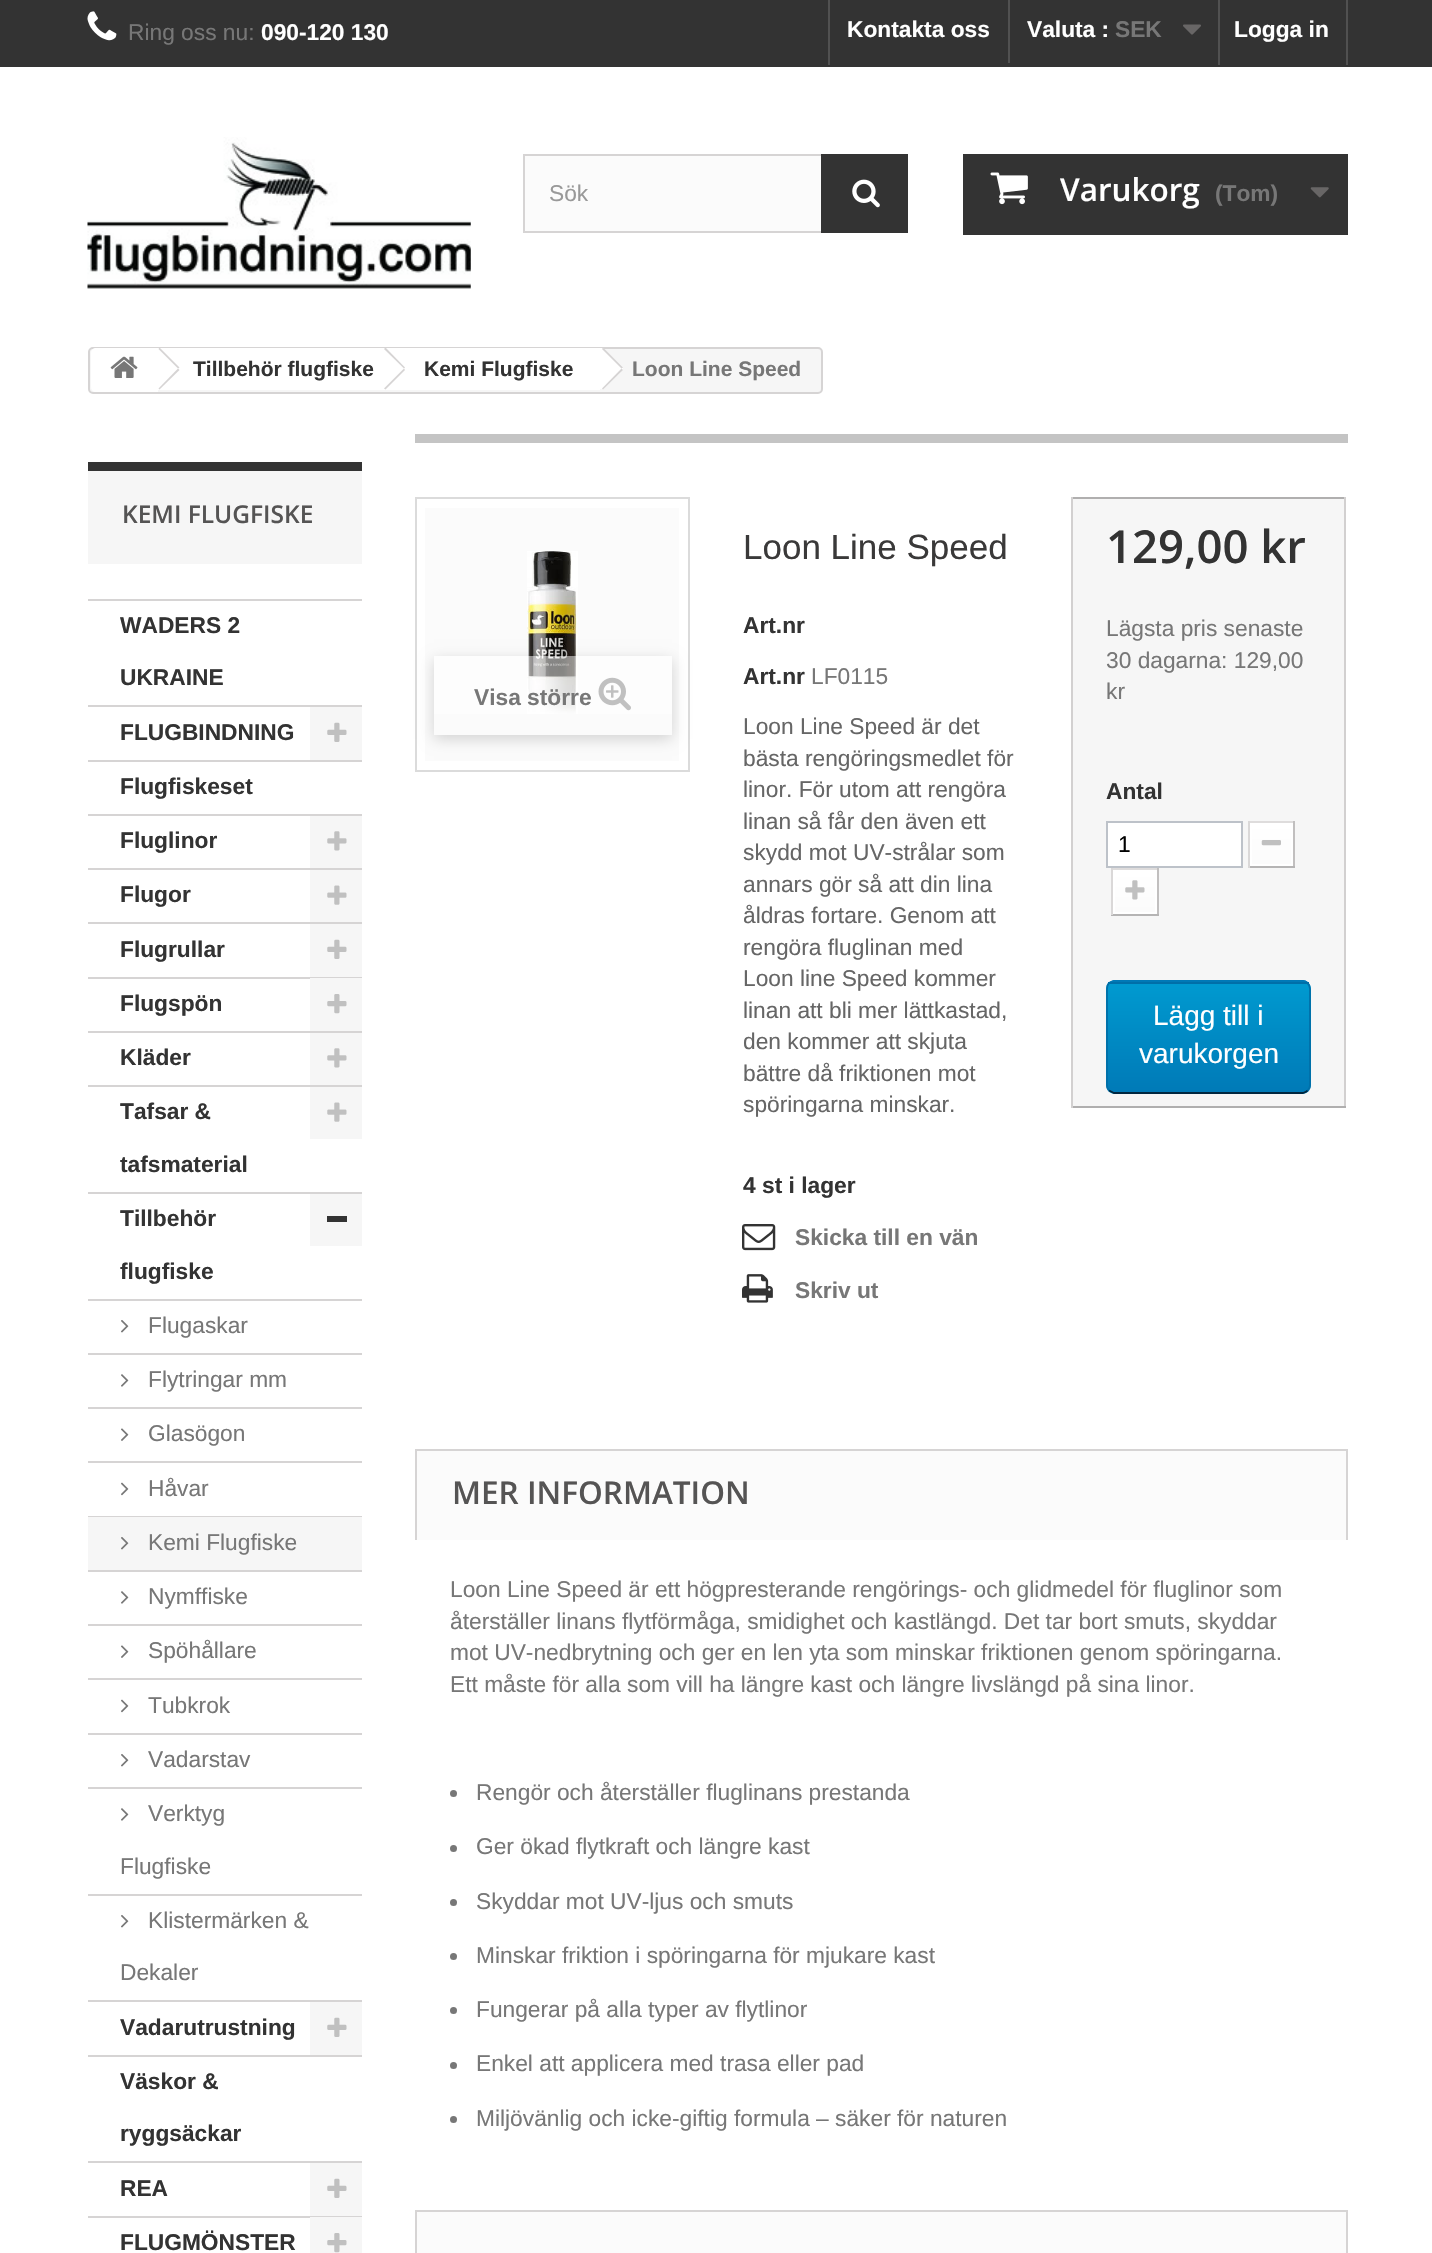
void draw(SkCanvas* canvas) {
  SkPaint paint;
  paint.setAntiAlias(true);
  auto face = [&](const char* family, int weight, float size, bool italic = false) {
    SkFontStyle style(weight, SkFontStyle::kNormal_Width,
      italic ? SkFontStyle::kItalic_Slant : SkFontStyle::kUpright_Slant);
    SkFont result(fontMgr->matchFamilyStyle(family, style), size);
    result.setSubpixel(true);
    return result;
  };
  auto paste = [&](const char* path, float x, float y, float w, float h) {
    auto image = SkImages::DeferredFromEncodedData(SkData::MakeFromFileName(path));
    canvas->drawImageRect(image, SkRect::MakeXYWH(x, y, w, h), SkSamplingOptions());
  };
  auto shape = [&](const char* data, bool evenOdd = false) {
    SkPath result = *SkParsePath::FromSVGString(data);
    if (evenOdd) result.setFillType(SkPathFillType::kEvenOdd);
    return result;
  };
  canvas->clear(0xffffffff);
  paint.setColor(0xff333333);
  canvas->drawRect(SkRect::MakeXYWH(0, 0, 1432, 67), paint);
  paste("img/1.png", 87, 11, 30, 30);
  paint.setColor(0xff515151);
  canvas->drawRect(SkRect::MakeXYWH(828, 0, 2, 65), paint);
  canvas->drawRect(SkRect::MakeXYWH(1008, 0, 2, 63), paint);
  paste("img/2.png", 1183, 24, 18, 11);
  canvas->drawRect(SkRect::MakeXYWH(1346, 0, 2, 65), paint);
  canvas->drawRect(SkRect::MakeXYWH(1218, 0, 2, 65), paint);
  paste("img/3.png", 87, 137, 384, 152);
  paint.setColor(0xfffbfbfb);
  canvas->drawRect(SkRect::MakeXYWH(525, 156, 296, 75), paint);
  paint.setStroke(true);
  paint.setStrokeWidth(2);
  paint.setColor(0xffd6d4d4);
  canvas->drawRect(SkRect::MakeXYWH(524, 155, 383, 77), paint);
  paint.setStroke(false);
  paint.setColor(0xff333333);
  canvas->drawRect(SkRect::MakeXYWH(821, 154, 87, 79), paint);
  paste("img/4.png", 852, 179, 28, 29);
  canvas->drawRect(SkRect::MakeXYWH(963, 154, 385, 81), paint);
  paste("img/5.png", 990, 172, 38, 33);
  paste("img/6.png", 1310, 187, 19, 11);
  paint.setColor(0xfff6f6f6);
  canvas->drawRoundRect(SkRect::MakeXYWH(89, 348, 733, 45), 4, 4, paint);
  paint.setStroke(true);
  paint.setColor(0xffd6d4d4);
  canvas->drawRoundRect(SkRect::MakeXYWH(89, 348, 733, 45), 4, 4, paint);
  paint.setStroke(false);
  paint.setColor(0xffffffff);
  canvas->drawPath(shape("M96 348H158V392H96C93 392 91 390 91 387V353C91 350 93 348 96 348Z"), paint);
  paste("img/7.png", 110, 356, 28, 22);
  canvas->drawRect(SkRect::MakeXYWH(158, 348, 229, 42), paint);
  paint.setColor(0xffd6d4d4);
  canvas->drawPath(shape("M159.5 347.5L179.5 367.5L178 368.5L158.5 349Z"), paint);
  canvas->drawPath(shape("M178 368.5L179.5 370L159.5 389.5L158.5 388.5Z"), paint);
  paint.setColor(0xffffffff);
  canvas->drawPath(shape("M404 349L403 348H400L382 366L381 368C381 372 388 377 390 380C392 381 400 391 403 389L418 374C420 372 425 368 421 366Z"), paint);
  canvas->drawRect(SkRect::MakeXYWH(387, 348, 213, 42), paint);
  paint.setColor(0xffd6d4d4);
  canvas->drawPath(shape("M385.5 347.5L405 367.5L404 368.5L384 349Z"), paint);
  canvas->drawPath(shape("M404 368.5L405 370L385.5 389.5L384 388.5Z"), paint);
  paint.setColor(0xffffffff);
  canvas->drawPath(shape("M604 349L603 348H600L588 360C577 371 580 369 590 380L596 385C599 388 601 391 604 388L616 377C618 375 626 370 622 366Z"), paint);
  paint.setColor(0xffd6d4d4);
  canvas->drawPath(shape("M603 347.5L623 367.5L621.5 368.5L602 349Z"), paint);
  canvas->drawPath(shape("M621.5 368.5L623 370L603 389.5L602 388.5Z"), paint);
  {
    const struct { float x, y, w, h; SkColor color; } items[] = {
      {88, 471, 274, 93, 0xfff6f6f6},
      {88, 462, 274, 9, 0xff333333},
      {88, 599, 274, 2, 0xffd6d4d4},
      {88, 705, 274, 2, 0xffd6d4d4},
      {88, 760, 274, 2, 0xffd6d4d4},
      {310, 707, 52, 53, 0xfff6f6f6},
    };
    for (auto [x, y, w, h, color] : items) {
      paint.setColor(color);
      canvas->drawRect(SkRect::MakeXYWH(x, y, w, h), paint);
    }
  }
  paste("img/8.png", 327, 722, 20, 20);
  {
    const struct { float x, y, w, h; SkColor color; } items[] = {
      {88, 814, 274, 2, 0xffd6d4d4},
      {88, 868, 274, 2, 0xffd6d4d4},
      {310, 816, 52, 52, 0xfff6f6f6},
    };
    for (auto [x, y, w, h, color] : items) {
      paint.setColor(color);
      canvas->drawRect(SkRect::MakeXYWH(x, y, w, h), paint);
    }
  }
  paste("img/9.png", 327, 831, 20, 20);
  paint.setColor(0xffd6d4d4);
  canvas->drawRect(SkRect::MakeXYWH(88, 922, 274, 2), paint);
  paint.setColor(0xfff6f6f6);
  canvas->drawRect(SkRect::MakeXYWH(310, 870, 52, 52), paint);
  paste("img/10.png", 327, 885, 20, 20);
  paint.setColor(0xffd6d4d4);
  canvas->drawRect(SkRect::MakeXYWH(88, 977, 274, 2), paint);
  paint.setColor(0xfff6f6f6);
  canvas->drawRect(SkRect::MakeXYWH(310, 924, 52, 53), paint);
  paste("img/8.png", 327, 939, 20, 20);
  paint.setColor(0xffd6d4d4);
  canvas->drawRect(SkRect::MakeXYWH(88, 1031, 274, 2), paint);
  paint.setColor(0xfff6f6f6);
  canvas->drawRect(SkRect::MakeXYWH(310, 978, 52, 53), paint);
  paste("img/11.png", 327, 994, 20, 20);
  paint.setColor(0xffd6d4d4);
  canvas->drawRect(SkRect::MakeXYWH(88, 1085, 274, 2), paint);
  paint.setColor(0xfff6f6f6);
  canvas->drawRect(SkRect::MakeXYWH(310, 1033, 52, 52), paint);
  paste("img/9.png", 327, 1048, 20, 20);
  paint.setColor(0xffd6d4d4);
  canvas->drawRect(SkRect::MakeXYWH(88, 1192, 274, 2), paint);
  paint.setColor(0xfff6f6f6);
  canvas->drawRect(SkRect::MakeXYWH(310, 1087, 52, 52), paint);
  paste("img/10.png", 327, 1102, 20, 20);
  {
    const struct { float x, y, w, h; SkColor color; } items[] = {
      {88, 1299, 274, 2, 0xffd6d4d4},
      {310, 1194, 52, 52, 0xfff6f6f6},
      {327, 1216, 20, 6, 0xff333333},
      {88, 1353, 274, 2, 0xffd6d4d4},
    };
    for (auto [x, y, w, h, color] : items) {
      paint.setColor(color);
      canvas->drawRect(SkRect::MakeXYWH(x, y, w, h), paint);
    }
  }
  paste("img/12.png", 121, 1320, 8, 13);
  canvas->drawRect(SkRect::MakeXYWH(88, 1407, 274, 2), paint);
  paste("img/13.png", 121, 1374, 8, 13);
  canvas->drawRect(SkRect::MakeXYWH(88, 1461, 274, 2), paint);
  paste("img/14.png", 121, 1428, 8, 13);
  canvas->drawRect(SkRect::MakeXYWH(88, 1516, 274, 1), paint);
  paste("img/15.png", 121, 1482, 8, 14);
  paint.setColor(0xfff6f6f6);
  canvas->drawRect(SkRect::MakeXYWH(88, 1517, 274, 53), paint);
  paint.setColor(0xffd6d4d4);
  canvas->drawRect(SkRect::MakeXYWH(88, 1570, 274, 2), paint);
  paste("img/16.png", 121, 1537, 8, 13);
  canvas->drawRect(SkRect::MakeXYWH(88, 1624, 274, 2), paint);
  paste("img/13.png", 121, 1591, 8, 13);
  canvas->drawRect(SkRect::MakeXYWH(88, 1678, 274, 2), paint);
  paste("img/14.png", 121, 1645, 8, 13);
  canvas->drawRect(SkRect::MakeXYWH(88, 1733, 274, 2), paint);
  paste("img/15.png", 121, 1699, 8, 14);
  canvas->drawRect(SkRect::MakeXYWH(88, 1787, 274, 2), paint);
  paste("img/12.png", 121, 1754, 8, 13);
  canvas->drawRect(SkRect::MakeXYWH(88, 1894, 274, 2), paint);
  paste("img/13.png", 121, 1808, 8, 13);
  canvas->drawRect(SkRect::MakeXYWH(88, 2000, 274, 2), paint);
  paste("img/12.png", 121, 1915, 8, 13);
  canvas->drawRect(SkRect::MakeXYWH(88, 2055, 274, 2), paint);
  paint.setColor(0xfff6f6f6);
  canvas->drawRect(SkRect::MakeXYWH(310, 2002, 52, 53), paint);
  paste("img/8.png", 327, 2017, 20, 20);
  {
    const struct { float x, y, w, h; SkColor color; } items[] = {
      {88, 2161, 274, 2, 0xffd6d4d4},
      {88, 2216, 274, 2, 0xffd6d4d4},
      {310, 2163, 52, 53, 0xfff6f6f6},
    };
    for (auto [x, y, w, h, color] : items) {
      paint.setColor(color);
      canvas->drawRect(SkRect::MakeXYWH(x, y, w, h), paint);
    }
  }
  paste("img/8.png", 327, 2178, 20, 20);
  canvas->drawRect(SkRect::MakeXYWH(310, 2217, 52, 36), paint);
  paste("img/11.png", 327, 2233, 20, 20);
  paint.setColor(0xffc4c4c4);
  canvas->drawRect(SkRect::MakeXYWH(415, 434, 933, 9), paint);
  paint.setStroke(true);
  paint.setColor(0xffdbdbdb);
  canvas->drawRect(SkRect::MakeXYWH(416, 498, 273, 273), paint);
  paint.setStroke(false);
  paint.setColor(0xfffbfbfb);
  canvas->drawRect(SkRect::MakeXYWH(425, 508, 254, 253), paint);
  paste("img/17.png", 527, 551, 51, 163);
  canvas->save();
  canvas->clipPath(shape("M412 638H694V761H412ZM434 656H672V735H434Z", true), true);
  paint.setColor(0x29000000);
  paint.setMaskFilter(SkMaskFilter::MakeBlur(kNormal_SkBlurStyle, 7));
  canvas->drawRect(SkRect::MakeXYWH(434, 660, 238, 79), paint);
  paint.setMaskFilter(nullptr);
  canvas->restore();
  paint.setColor(0x80ffffff);
  canvas->drawRect(SkRect::MakeXYWH(434, 656, 238, 58), paint);
  paste("img/18.png", 598, 677, 33, 34);
  paste("img/19.png", 742, 1224, 34, 27);
  paste("img/20.png", 742, 1274, 31, 29);
  {
    const struct { float x, y, w, h; SkColor color; } items[] = {
      {1073, 499, 271, 607, 0xfff6f6f6},
      {1071, 497, 275, 2, 0xffb0afaf},
      {1344, 497, 2, 611, 0xffd2d0d0},
      {1071, 1106, 275, 2, 0xffb0afaf},
      {1071, 497, 2, 611, 0xffd2d0d0},
    };
    for (auto [x, y, w, h, color] : items) {
      paint.setColor(color);
      canvas->drawRect(SkRect::MakeXYWH(x, y, w, h), paint);
    }
  }
  paint.setColor(0xffffffff);
  canvas->drawRect(SkRect::MakeXYWH(1107, 822, 135, 45), paint);
  paint.setStroke(true);
  paint.setColor(0xffbdc2c9);
  canvas->drawRect(SkRect::MakeXYWH(1107, 822, 135, 45), paint);
  paint.setStroke(false);
  {
    const struct { float x, y, w, h; SkColor color; } items[] = {
      {1248, 821, 47, 2, 0xffdedcdc},
      {1293, 821, 2, 47, 0xffc1bfbf},
      {1248, 866, 47, 2, 0xffb5b4b4},
      {1248, 821, 2, 47, 0xffdad8d8},
    };
    for (auto [x, y, w, h, color] : items) {
      paint.setColor(color);
      canvas->drawRect(SkRect::MakeXYWH(x, y, w, h), paint);
    }
  }
  {
    const SkColor colors[] = {0xffffffff, 0xfffbfbfb};
    const float stops[] = {0, 1};
    const SkPoint ends[] = {{1271, 824}, {1271, 865}};
    paint.setShader(SkGradientShader::MakeLinear(ends, colors, stops, 2, SkTileMode::kClamp));
    paint.setAlpha(255);
  }
  canvas->drawRect(SkRect::MakeXYWH(1252, 825, 39, 39), paint);
  paint.setStroke(true);
  paint.setShader(nullptr);
  paint.setColor(0xffffffff);
  canvas->drawRect(SkRect::MakeXYWH(1251, 824, 41, 41), paint);
  paste("img/21.png", 1261, 840, 20, 6);
  paint.setStroke(false);
  {
    const struct { float x, y, w, h; SkColor color; } items[] = {
      {1111, 868, 48, 2, 0xffdedcdc},
      {1157, 868, 2, 47, 0xffc1bfbf},
      {1111, 914, 48, 2, 0xffb5b4b4},
      {1111, 868, 2, 47, 0xffdad8d8},
    };
    for (auto [x, y, w, h, color] : items) {
      paint.setColor(color);
      canvas->drawRect(SkRect::MakeXYWH(x, y, w, h), paint);
    }
  }
  {
    const SkColor colors[] = {0xffffffff, 0xfffbfbfb};
    const float stops[] = {0, 1};
    const SkPoint ends[] = {{1135, 872}, {1135, 912}};
    paint.setShader(SkGradientShader::MakeLinear(ends, colors, stops, 2, SkTileMode::kClamp));
    paint.setAlpha(255);
  }
  canvas->drawRect(SkRect::MakeXYWH(1115, 872, 40, 40), paint);
  paint.setStroke(true);
  paint.setShader(nullptr);
  paint.setColor(0xffffffff);
  canvas->drawRect(SkRect::MakeXYWH(1114, 871, 42, 42), paint);
  paste("img/22.png", 1125, 880, 20, 20);
  canvas->save();
  canvas->clipPath(shape("M1115 980H1302C1307 980 1311 984 1311 989V1085C1311 1090 1307 1094 1302 1094H1115C1110 1094 1106 1090 1106 1085V989C1106 984 1110 980 1115 980Z"), true);
  paint.setStroke(false);
  {
    const SkColor colors[] = {0xff009ad0, 0xff007ab7};
    const float stops[] = {0, 1};
    const SkPoint ends[] = {{1208, 872}, {1208, 982}};
    paint.setShader(SkGradientShader::MakeLinear(ends, colors, stops, 2, SkTileMode::kClamp));
    paint.setAlpha(255);
  }
  canvas->drawRect(SkRect::MakeXYWH(1106, 980, 205, 2), paint);
  {
    const SkColor colors[] = {0xff009ad0, 0xff007ab7};
    const float stops[] = {0, 1};
    const SkPoint ends[] = {{1208, 982}, {1208, 1092}};
    paint.setShader(SkGradientShader::MakeLinear(ends, colors, stops, 2, SkTileMode::kClamp));
    paint.setAlpha(255);
  }
  canvas->drawRect(SkRect::MakeXYWH(1106, 983, 205, 109), paint);
  {
    const SkColor colors[] = {0xff009ad0, 0xff007ab7};
    const float stops[] = {0, 1};
    const SkPoint ends[] = {{1208, 1092}, {1208, 1202}};
    paint.setShader(SkGradientShader::MakeLinear(ends, colors, stops, 2, SkTileMode::kClamp));
    paint.setAlpha(255);
  }
  canvas->drawRect(SkRect::MakeXYWH(1106, 1092, 205, 2), paint);
  canvas->restore();
  paint.setStroke(true);
  paint.setStrokeWidth(1.8f);
  paint.setShader(nullptr);
  paint.setColor(0xff0079b6);
  canvas->drawPath(shape("M1109 983L1114 981H1303C1304.5 981 1306.5 982 1307.5 983"), paint);
  paint.setColor(0xff006fa8);
  canvas->drawPath(shape("M1307.5 983C1309 984.5 1310 986.5 1310 989V1085C1310 1087 1309 1089 1307.5 1090.5"), paint);
  paint.setColor(0xff012740);
  canvas->drawPath(shape("M1307.5 1090.5C1306.5 1092 1304.5 1092.5 1303 1093H1114L1109 1090.5"), paint);
  paint.setColor(0xff006fa8);
  canvas->drawPath(shape("M1109 1090.5C1107.5 1089 1107 1087 1107 1085V989C1107 986.5 1107.5 984.5 1109 983"), paint);
  paint.setStroke(false);
  {
    const struct { float x, y, w, h; SkColor color; } items[] = {
      {1108, 982, 201, 2, 0xff006fa8},
      {417, 1451, 929, 89, 0xfffbfbfb},
      {415, 1449, 933, 2, 0xffd6d4d4},
      {1346, 1449, 2, 91, 0xffd6d4d4},
      {415, 1449, 2, 91, 0xffd6d4d4},
    };
    for (auto [x, y, w, h, color] : items) {
      paint.setColor(color);
      canvas->drawRect(SkRect::MakeXYWH(x, y, w, h), paint);
    }
  }
  paint.setColor(0xff777777);
  canvas->drawCircle(453.5f, 1793.5f, 3.5f, paint);
  canvas->drawCircle(453.5f, 1848.5f, 3.5f, paint);
  canvas->drawCircle(453.5f, 1902.5f, 3.5f, paint);
  canvas->drawCircle(453.5f, 1956.5f, 3.5f, paint);
  canvas->drawCircle(453.5f, 2010.5f, 3.5f, paint);
  canvas->drawCircle(453.5f, 2065.5f, 3.5f, paint);
  canvas->drawCircle(453.5f, 2119.5f, 3.5f, paint);
  {
    const struct { float x, y, w, h; SkColor color; } items[] = {
      {417, 2212, 929, 41, 0xfffbfbfb},
      {415, 2210, 933, 2, 0xffd6d4d4},
      {1346, 2210, 2, 43, 0xffd6d4d4},
      {415, 2210, 2, 43, 0xffd6d4d4},
    };
    for (auto [x, y, w, h, color] : items) {
      paint.setColor(color);
      canvas->drawRect(SkRect::MakeXYWH(x, y, w, h), paint);
    }
  }
  auto f0 = face("Liberation Sans", 400, 22.75f);
  paint.setColor(0xff777777);
  canvas->drawString("Ring oss nu:", 128, 40, f0, paint);
  auto f1 = face("Liberation Sans", 700, 22.75f);
  paint.setColor(0xffffffff);
  {
    const struct { const char* s; float x, y; } items[] = {
      {"090-120 130", 261, 40},
      {"Kontakta oss", 847, 37},
      {"Valuta :", 1027, 37},
    };
    for (auto [s, x, y] : items) {
      canvas->drawString(s, x, y, f1, paint);
    }
  }
  paint.setColor(0xff777777);
  canvas->drawString("SEK", 1115, 37, f1, paint);
  paint.setColor(0xffffffff);
  canvas->drawString("Logga in", 1234, 37, f1, paint);
  paint.setColor(0xff999999);
  canvas->drawString("Sök", 549, 201, f0, paint);
  auto f2 = face("Open Sans", 600, 31.5f);
  paint.setColor(0xffffffff);
  canvas->drawString("Varukorg", 1060, 201, f2, paint);
  paint.setColor(0xff777777);
  canvas->drawString("(Tom)", 1215, 201, f1, paint);
  auto f3 = face("Liberation Sans", 700, 21);
  paint.setColor(0xff333333);
  canvas->drawString("Tillbehör flugfiske", 193, 376, f3, paint);
  canvas->drawString("Kemi Flugfiske", 424, 376, f3, paint);
  paint.setColor(0xff777777);
  canvas->drawString("Loon Line Speed", 632, 376, f3, paint);
  auto f4 = face("Open Sans", 600, 24.5f);
  paint.setColor(0xff555454);
  canvas->drawString("KEMI FLUGFISKE", 122, 523, f4, paint);
  paint.setColor(0xff333333);
  {
    const struct { const char* s; float x, y; } items[] = {
      {"WADERS 2", 120, 633},
      {"UKRAINE", 120, 685},
      {"FLUGBINDNING", 120, 740},
      {"Flugfiskeset", 120, 794},
      {"Fluglinor", 120, 848},
      {"Flugor", 120, 902},
      {"Flugrullar", 120, 957},
      {"Flugspön", 120, 1011},
      {"Kläder", 120, 1065},
      {"Tafsar &", 120, 1119},
      {"tafsmaterial", 120, 1172},
      {"Tillbehör", 120, 1226},
      {"flugfiske", 120, 1279},
    };
    for (auto [s, x, y] : items) {
      canvas->drawString(s, x, y, f1, paint);
    }
  }
  paint.setColor(0xff777777);
  {
    const struct { const char* s; float x, y; } items[] = {
      {"Flugaskar", 148, 1333},
      {"Flytringar mm", 148, 1387},
      {"Glasögon", 148, 1441},
      {"Håvar", 148, 1496},
      {"Kemi Flugfiske", 148, 1550},
      {"Nymffiske", 148, 1604},
      {"Spöhållare", 148, 1658},
      {"Tubkrok", 148, 1713},
      {"Vadarstav", 148, 1767},
      {"Verktyg", 148, 1821},
      {"Flugfiske", 120, 1874},
      {"Klistermärken &", 148, 1928},
      {"Dekaler", 120, 1980},
    };
    for (auto [s, x, y] : items) {
      canvas->drawString(s, x, y, f0, paint);
    }
  }
  paint.setColor(0xff333333);
  {
    const struct { const char* s; float x, y; } items[] = {
      {"Vadarutrustning", 120, 2035},
      {"Väskor &", 120, 2089},
      {"ryggsäckar", 120, 2141},
      {"REA", 120, 2196},
      {"FLUGMÖNSTER", 120, 2250},
    };
    for (auto [s, x, y] : items) {
      canvas->drawString(s, x, y, f1, paint);
    }
  }
  paint.setColor(0xff777777);
  canvas->drawString("Visa större", 474, 705, f1, paint);
  auto f5 = face("Liberation Sans", 400, 35);
  paint.setColor(0xff3a3939);
  canvas->drawString("Loon Line Speed", 743, 559, f5, paint);
  paint.setColor(0xff333333);
  canvas->drawString("Art.nr", 743, 633, f1, paint);
  canvas->drawString("Art.nr", 743, 684, f1, paint);
  paint.setColor(0xff777777);
  canvas->drawString("LF0115", 811, 684, f0, paint);
  paint.setColor(0xff666666);
  {
    const struct { const char* s; float x, y; } items[] = {
      {"Loon Line Speed är det", 743, 734},
      {"bästa rengöringsmedlet för", 743, 766},
      {"linor. För utom att rengöra", 743, 797},
      {"linan så får den även ett", 743, 829},
      {"skydd mot UV-strålar som", 743, 860},
      {"annars gör så att din lina", 743, 892},
      {"åldras fortare. Genom att", 743, 923},
      {"rengöra fluglinan med", 743, 955},
      {"Loon line Speed kommer", 743, 986},
      {"linan att bli mer lättkastad,", 743, 1018},
      {"den kommer att skjuta", 743, 1049},
      {"bättre då friktionen mot", 743, 1081},
      {"spöringarna minskar.", 743, 1112},
    };
    for (auto [s, x, y] : items) {
      canvas->drawString(s, x, y, f0, paint);
    }
  }
  paint.setColor(0xff333333);
  canvas->drawString("4 st i lager", 743, 1193, f1, paint);
  paint.setColor(0xff777777);
  canvas->drawString("Skicka till en vän", 795, 1245, f1, paint);
  canvas->drawString("Skriv ut", 795, 1298, f1, paint);
  auto f6 = face("Open Sans", 600, 45.5f);
  paint.setColor(0xff333333);
  canvas->drawString("129,00 kr", 1106, 563, f6, paint);
  paint.setColor(0xff777777);
  {
    const struct { const char* s; float x, y; } items[] = {
      {"Lägsta pris senaste", 1106, 636},
      {"30 dagarna: 129,00", 1106, 668},
      {"kr", 1106, 699},
    };
    for (auto [s, x, y] : items) {
      canvas->drawString(s, x, y, f0, paint);
    }
  }
  paint.setColor(0xff333333);
  canvas->drawString("Antal", 1106, 799, f1, paint);
  paint.setColor(0xff000000);
  canvas->drawString("1", 1118, 852, f0, paint);
  auto f7 = face("Liberation Sans", 400, 28);
  paint.setColor(0xffffffff);
  canvas->drawString("Lägg till i", 1153, 1025, f7, paint);
  canvas->drawString("varukorgen", 1139, 1063, f7, paint);
  paint.setColor(0xff555454);
  canvas->drawString("MER INFORMATION", 452, 1504, f2, paint);
  paint.setColor(0xff777777);
  {
    const struct { const char* s; float x, y; } items[] = {
      {"Loon Line Speed är ett högpresterande rengörings- och glidmedel för fluglinor som", 450, 1597},
      {"återställer linans flytförmåga, smidighet och kastlängd. Det tar bort smuts, skyddar", 450, 1629},
      {"mot UV-nedbrytning och ger en len yta som minskar friktionen genom spöringarna.", 450, 1660},
      {"Ett måste för alla som vill ha längre kast och längre livslängd på sina linor.", 450, 1692},
      {"Rengör och återställer fluglinans prestanda", 476, 1800},
      {"Ger ökad flytkraft och längre kast", 476, 1854},
      {"Skyddar mot UV-ljus och smuts", 476, 1909},
      {"Minskar friktion i spöringarna för mjukare kast", 476, 1963},
      {"Fungerar på alla typer av flytlinor", 476, 2017},
      {"Enkel att applicera med trasa eller pad", 476, 2071},
      {"Miljövänlig och icke-giftig formula – säker för naturen", 476, 2126},
    };
    for (auto [s, x, y] : items) {
      canvas->drawString(s, x, y, f0, paint);
    }
  }
}
